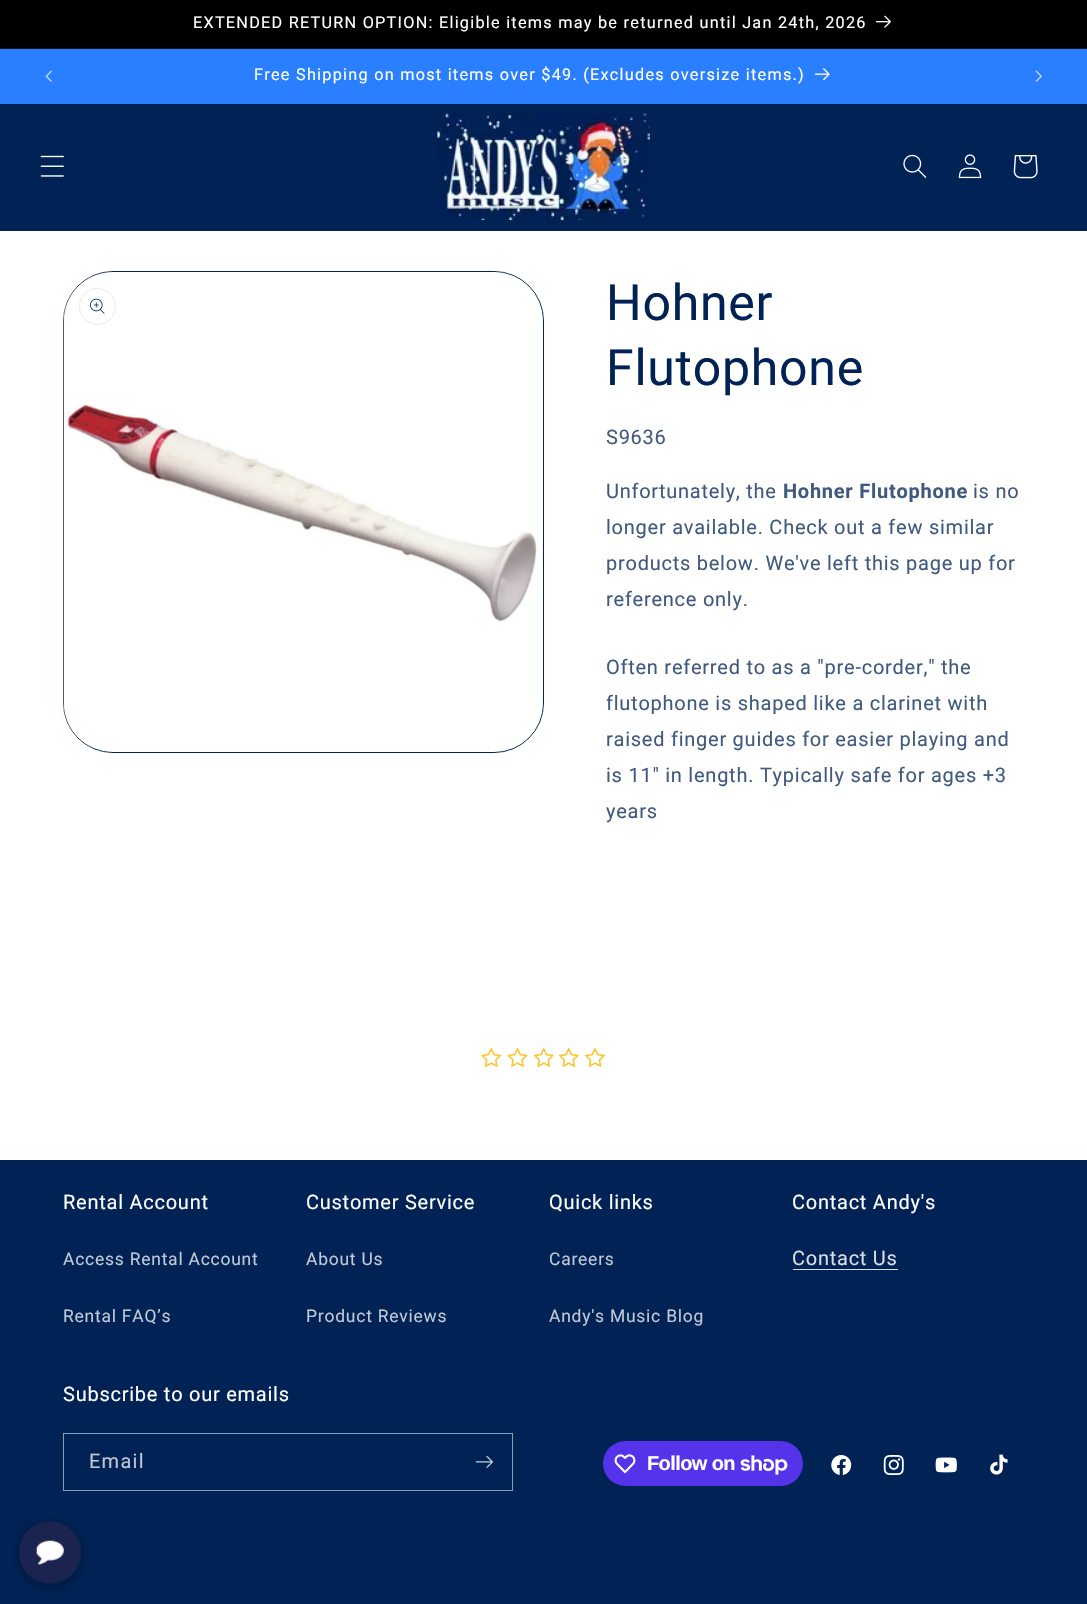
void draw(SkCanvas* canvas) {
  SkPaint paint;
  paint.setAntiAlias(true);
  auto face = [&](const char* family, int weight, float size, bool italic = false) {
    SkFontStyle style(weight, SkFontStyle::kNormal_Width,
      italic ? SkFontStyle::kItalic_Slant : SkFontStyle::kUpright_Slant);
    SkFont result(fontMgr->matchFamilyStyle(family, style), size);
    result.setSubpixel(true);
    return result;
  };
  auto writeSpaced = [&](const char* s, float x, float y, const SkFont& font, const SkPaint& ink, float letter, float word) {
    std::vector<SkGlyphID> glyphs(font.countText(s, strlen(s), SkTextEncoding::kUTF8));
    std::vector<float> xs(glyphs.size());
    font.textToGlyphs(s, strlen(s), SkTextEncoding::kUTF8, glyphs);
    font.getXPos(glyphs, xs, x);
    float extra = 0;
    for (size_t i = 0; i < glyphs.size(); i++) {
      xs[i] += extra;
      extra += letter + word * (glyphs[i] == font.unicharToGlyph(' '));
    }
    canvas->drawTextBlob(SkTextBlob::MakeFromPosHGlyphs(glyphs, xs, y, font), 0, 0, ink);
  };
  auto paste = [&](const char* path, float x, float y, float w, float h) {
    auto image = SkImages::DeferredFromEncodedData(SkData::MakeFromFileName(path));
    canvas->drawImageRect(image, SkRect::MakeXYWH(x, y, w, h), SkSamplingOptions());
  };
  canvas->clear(0xffffffff);
  paint.setColor(0xff000000);
  canvas->drawRect(SkRect::MakeXYWH(0, 0, 1087, 48), paint);
  paint.setColor(0xff141414);
  canvas->drawRect(SkRect::MakeXYWH(0, 48, 1087, 1), paint);
  paste("img/1.png", 876, 15, 15, 13);
  paint.setColor(0xff2a7fff);
  canvas->drawRect(SkRect::MakeXYWH(0, 49, 1087, 55), paint);
  paste("img/2.png", 45, 70, 7, 12);
  paste("img/3.png", 815, 68, 15, 13);
  paste("img/4.png", 1035, 70, 7, 12);
  paint.setColor(0xff002255);
  canvas->drawRect(SkRect::MakeXYWH(0, 104, 1087, 127), paint);
  paste("img/5.png", 40, 155, 24, 22);
  paste("img/6.png", 437, 113, 213, 107);
  paste("img/7.png", 903, 154, 24, 24);
  paste("img/8.png", 958, 154, 24, 25);
  paste("img/9.png", 1013, 155, 25, 24);
  paint.setStroke(true);
  paint.setStrokeWidth(1);
  canvas->drawRoundRect(SkRect::MakeXYWH(63.5f, 271.5f, 480, 481), 49.5f, 49.5f, paint);
  paste("img/10.png", 63, 272, 480, 480);
  paint.setColor(0xffe6e9ee);
  canvas->drawCircle(97.5f, 306.5f, 18, paint);
  paste("img/11.png", 90, 298, 15, 16);
  paste("img/12.png", 481, 1048, 21, 19);
  paste("img/13.png", 507, 1048, 21, 19);
  paste("img/14.png", 533, 1048, 21, 19);
  paste("img/14.png", 558, 1048, 21, 19);
  paste("img/15.png", 585, 1048, 20, 19);
  paint.setStroke(false);
  paint.setColor(0xff002255);
  canvas->drawRect(SkRect::MakeXYWH(0, 1160, 1087, 444), paint);
  paint.setColor(0xffd9dee6);
  canvas->drawRect(SkRect::MakeXYWH(793, 1269, 105, 1), paint);
  paint.setStroke(true);
  paint.setColor(0xff8c9cb3);
  canvas->drawRect(SkRect::MakeXYWH(63.5f, 1433.5f, 449, 57), paint);
  paste("img/16.png", 475, 1455, 18, 13);
  paint.setStroke(false);
  paint.setColor(0xff5433eb);
  canvas->drawRoundRect(SkRect::MakeXYWH(603, 1441, 200, 45), 22.5f, 22.5f, paint);
  paste("img/17.png", 614, 1454, 22, 20);
  paste("img/18.png", 740, 1455, 48, 20);
  paste("img/19.png", 831, 1455, 21, 20);
  paste("img/20.png", 883, 1455, 21, 20);
  paste("img/21.png", 935, 1457, 22, 16);
  paste("img/22.png", 990, 1454, 18, 21);
  paste("img/23.png", 12, 1517, 76, 76);
  auto f0 = face("Roboto", 400, 16.25f);
  paint.setColor(0xffffffff);
  writeSpaced("EXTENDED RETURN OPTION: Eligible items may be returned until Jan 24th, 2026", 193, 28, f0, paint, 1.25f, 0);
  writeSpaced("Free Shipping on most items over $49. (Excludes oversize items.)", 254, 80, f0, paint, 1.25f, 0);
  auto f1 = face("Roboto", 400, 50);
  paint.setColor(0xff002255);
  writeSpaced("Hohner", 606, 320, f1, paint, 0.75f, 0);
  writeSpaced("Flutophone", 606, 385, f1, paint, 0.75f, 0);
  auto f2 = face("Roboto", 400, 20);
  paint.setColor(0xff405980);
  writeSpaced("S9636", 606, 444, f2, paint, 0.75f, 0);
  writeSpaced("Unfortunately, the", 606, 498, f2, paint, 0.75f, 0);
  auto f3 = face("Roboto", 700, 20);
  writeSpaced("Hohner Flutophone", 783, 498, f3, paint, 0.75f, 0);
  {
    const struct { const char* s; float x, y; } items[] = {
      {"is no", 973, 498},
      {"longer available. Check out a few similar", 606, 534},
      {"products below. We've left this page up for", 606, 570},
      {"reference only.", 606, 606},
      {"Often referred to as a \"pre-corder,\" the", 606, 674},
      {"flutophone is shaped like a clarinet with", 606, 710},
      {"raised finger guides for easier playing and", 606, 746},
      {"is 11\" in length. Typically safe for ages +3", 606, 782},
      {"years", 606, 818},
    };
    for (auto [s, x, y] : items) {
      writeSpaced(s, x, y, f2, paint, 0.75f, 0);
    }
  }
  paint.setColor(0xffffffff);
  writeSpaced("Rental Account", 63, 1209, f2, paint, 0.75f, 0);
  auto f4 = face("Roboto", 400, 17.5f);
  paint.setColor(0xffbfc8d5);
  writeSpaced("Access Rental Account", 63, 1265, f4, paint, 0.75f, 0);
  writeSpaced("Rental FAQ’s", 63, 1322, f4, paint, 0.75f, 0);
  paint.setColor(0xffffffff);
  writeSpaced("Customer Service", 306, 1209, f2, paint, 0.75f, 0);
  paint.setColor(0xffbfc8d5);
  writeSpaced("About Us", 306, 1265, f4, paint, 0.75f, 0);
  writeSpaced("Product Reviews", 306, 1322, f4, paint, 0.75f, 0);
  paint.setColor(0xffffffff);
  writeSpaced("Quick links", 549, 1209, f2, paint, 0.75f, 0);
  paint.setColor(0xffbfc8d5);
  writeSpaced("Careers", 549, 1265, f4, paint, 0.75f, 0);
  writeSpaced("Andy's Music Blog", 549, 1322, f4, paint, 0.75f, 0);
  paint.setColor(0xffffffff);
  writeSpaced("Contact Andy's", 792, 1209, f2, paint, 0.75f, 0);
  paint.setColor(0xffd9dee6);
  writeSpaced("Contact Us", 792, 1265, f2, paint, 0.75f, 0);
  paint.setColor(0xffffffff);
  writeSpaced("Subscribe to our emails", 63, 1401, f2, paint, 0.75f, 0);
  paint.setColor(0xffbfc8d5);
  writeSpaced("Email", 89, 1468, f2, paint, 1.25f, 0);
  auto f5 = face("Liberation Sans", 700, 20);
  paint.setColor(0xffffffff);
  writeSpaced("Follow on", 647, 1470, f5, paint, -0.6f, 0);
}
